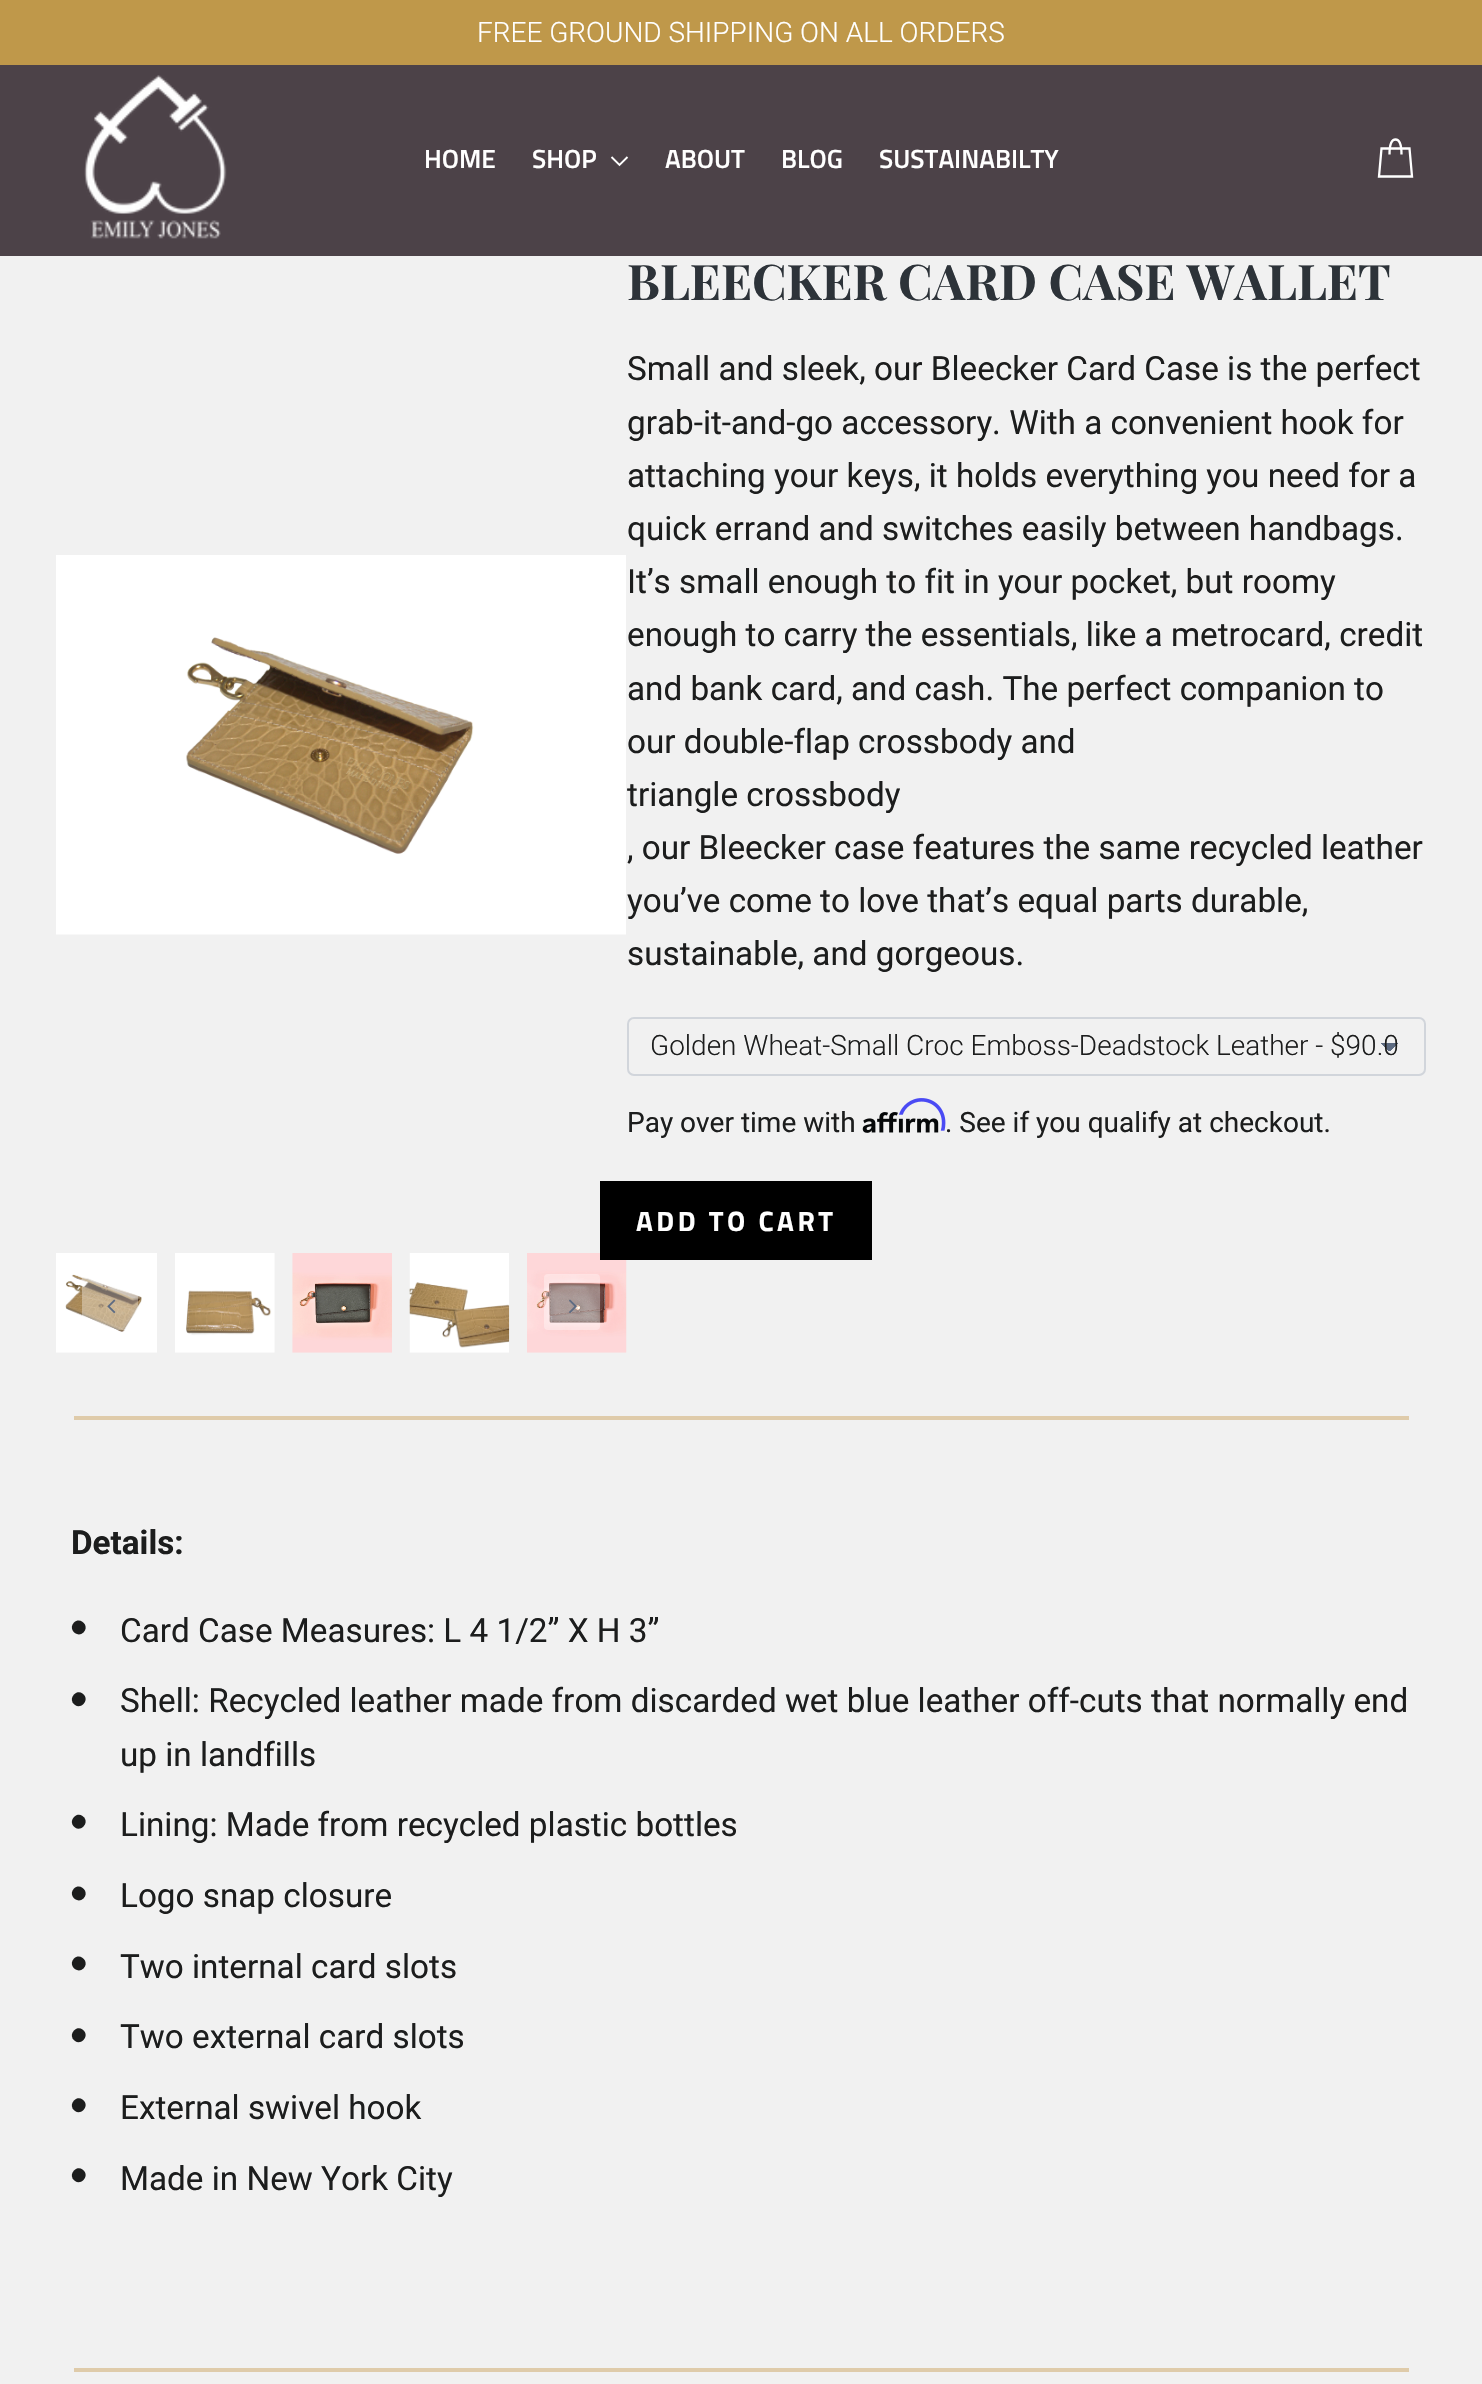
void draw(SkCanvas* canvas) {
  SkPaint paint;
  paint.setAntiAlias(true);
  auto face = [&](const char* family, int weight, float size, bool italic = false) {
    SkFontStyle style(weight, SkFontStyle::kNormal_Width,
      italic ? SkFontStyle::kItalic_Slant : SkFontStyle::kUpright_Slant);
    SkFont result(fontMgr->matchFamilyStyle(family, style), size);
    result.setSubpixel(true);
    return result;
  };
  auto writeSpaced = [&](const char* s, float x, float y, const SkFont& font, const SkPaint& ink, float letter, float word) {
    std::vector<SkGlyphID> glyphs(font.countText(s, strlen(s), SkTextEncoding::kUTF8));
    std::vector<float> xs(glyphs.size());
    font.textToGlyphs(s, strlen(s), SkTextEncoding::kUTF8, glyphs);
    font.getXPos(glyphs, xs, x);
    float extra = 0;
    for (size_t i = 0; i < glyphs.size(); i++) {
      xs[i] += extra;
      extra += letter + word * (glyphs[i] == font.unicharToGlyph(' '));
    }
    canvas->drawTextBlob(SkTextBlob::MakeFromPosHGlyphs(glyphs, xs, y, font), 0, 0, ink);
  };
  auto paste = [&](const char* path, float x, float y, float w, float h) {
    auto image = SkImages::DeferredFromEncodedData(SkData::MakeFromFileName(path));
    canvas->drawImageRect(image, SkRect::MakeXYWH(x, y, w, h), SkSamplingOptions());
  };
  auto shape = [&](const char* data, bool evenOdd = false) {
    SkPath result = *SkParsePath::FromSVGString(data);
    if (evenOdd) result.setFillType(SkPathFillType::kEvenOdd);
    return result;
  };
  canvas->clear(0xfff1f1f1);
  paint.setColor(0xffbf984a);
  canvas->drawRect(SkRect::MakeXYWH(0, 0, 1482, 65), paint);
  paint.setColor(0xff4c4248);
  canvas->drawRect(SkRect::MakeXYWH(0, 65, 1482, 191), paint);
  paste("img/1.png", 84, 75, 143, 164);
  paint.setStroke(true);
  paint.setStrokeWidth(1.9f);
  paint.setColor(0xffffffff);
  canvas->drawPath(shape("M611.5 157L619.5 165L627.5 157"), paint);
  paint.setStrokeWidth(2.3f);
  canvas->drawPath(shape("M1389.5 154.5C1389.5 142.5 1392 139.5 1395.5 139.5C1399 139.5 1401.5 142.5 1401.5 154.5M1381.5 148.5H1409.5L1412 176.5H1379Z"), paint);
  paste("img/2.png", 56, 555, 570, 380);
  paste("img/3.png", 56, 1253, 101, 100);
  paste("img/4.png", 175, 1253, 100, 100);
  paste("img/5.png", 292, 1253, 100, 100);
  paste("img/6.png", 409, 1253, 101, 100);
  paste("img/7.png", 527, 1253, 100, 100);
  paint.setStroke(false);
  paint.setColor(0x59ffffff);
  canvas->drawRoundRect(SkRect::MakeXYWH(82, 1274, 56, 56), 4, 4, paint);
  paste("img/8.png", 107, 1299, 9, 15);
  canvas->drawRoundRect(SkRect::MakeXYWH(544, 1274, 56, 56), 4, 4, paint);
  paste("img/9.png", 569, 1299, 8, 14);
  {
    const SkColor colors[] = {0xff5d6b82, 0xfff1f1f1};
    const float stops[] = {0.5f, 0.5f};
    const SkPoint ends[] = {{1390, 1043}, {1398, 1052}};
    paint.setShader(SkGradientShader::MakeLinear(ends, colors, stops, 2, SkTileMode::kClamp));
    paint.setAlpha(255);
  }
  canvas->drawRect(SkRect::MakeXYWH(1390, 1043, 8, 9), paint);
  {
    const SkColor colors[] = {0xfff1f1f1, 0xff5d6b82};
    const float stops[] = {0.5f, 0.5f};
    const SkPoint ends[] = {{1381, 1052}, {1390, 1043}};
    paint.setShader(SkGradientShader::MakeLinear(ends, colors, stops, 2, SkTileMode::kClamp));
    paint.setAlpha(255);
  }
  canvas->drawRect(SkRect::MakeXYWH(1381, 1043, 9, 8), paint);
  paint.setStroke(true);
  paint.setStrokeWidth(2);
  paint.setShader(nullptr);
  paint.setColor(0xffd1d5db);
  canvas->drawRoundRect(SkRect::MakeXYWH(628, 1018, 797, 57), 6, 6, paint);
  paste("img/11.png", 862, 1112, 77, 21);
  paste("img/10.png", 899, 1098, 47, 33);
  paint.setStroke(false);
  paint.setColor(0xff000000);
  canvas->drawRect(SkRect::MakeXYWH(600, 1181, 272, 79), paint);
  paint.setColor(0xffdfcbaa);
  canvas->drawRect(SkRect::MakeXYWH(74, 1416, 1335, 4), paint);
  paint.setColor(0xff1c1d1d);
  canvas->drawPath(shape("M74 1622.5C80.5 1616.5 90 1626 83.5 1632.5C77 1638.5 67.5 1629 74 1622.5Z"), paint);
  canvas->drawPath(shape("M74 1694.5C80.5 1688 90 1697.5 83.5 1704C77 1710.5 67.5 1701 74 1694.5Z"), paint);
  canvas->drawPath(shape("M74 1817C80.5 1810.5 90 1820 83.5 1826.5C77 1833 67.5 1823.5 74 1817Z"), paint);
  canvas->drawPath(shape("M74 1888.5C80.5 1882.5 90 1892 83.5 1898.5C77 1904.5 67.5 1895 74 1888.5Z"), paint);
  canvas->drawPath(shape("M74 1958.5C80.5 1952.5 90 1962 83.5 1968.5C77 1974.5 67.5 1965 74 1958.5Z"), paint);
  canvas->drawPath(shape("M74 2030.5C80.5 2024 90 2033.5 83.5 2040C77 2046.5 67.5 2037 74 2030.5Z"), paint);
  canvas->drawPath(shape("M74 2100.5C80.5 2094 90 2103.5 83.5 2110C77 2116.5 67.5 2107 74 2100.5Z"), paint);
  canvas->drawPath(shape("M74 2170.5C80.5 2164 90 2173.5 83.5 2180C77 2186.5 67.5 2177 74 2170.5Z"), paint);
  paint.setColor(0xffdfcbaa);
  canvas->drawRect(SkRect::MakeXYWH(74, 2368, 1335, 4), paint);
  auto f0 = face("Roboto", 300, 28);
  paint.setColor(0xffffffff);
  canvas->drawString("FREE GROUND SHIPPING ON ALL ORDERS", 477, 42, f0, paint);
  auto f1 = face("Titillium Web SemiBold", 600, 26.25f);
  {
    const struct { const char* s; float x, y; } items[] = {
      {"HOME", 424, 168},
      {"SHOP", 532, 168},
      {"ABOUT", 665, 168},
      {"BLOG", 781, 168},
      {"SUSTAINABILTY", 879, 168},
    };
    for (auto [s, x, y] : items) {
      canvas->drawString(s, x, y, f1, paint);
    }
  }
  auto f2 = face("Playfair Display", 700, 49);
  paint.setColor(0xff2d3339);
  canvas->drawString("BLEECKER CARD CASE WALLET", 627, 300, f2, paint);
  auto f3 = face("Roboto", 400, 33.25f);
  paint.setColor(0xff1c1d1d);
  {
    const struct { const char* s; float x, y; } items[] = {
      {"Small and sleek, our Bleecker Card Case is the perfect", 627, 380},
      {"grab-it-and-go accessory. With a convenient hook for", 627, 434},
      {"attaching your keys, it holds everything you need for a", 627, 487},
      {"quick errand and switches easily between handbags.", 627, 540},
      {"It’s small enough to fit in your pocket, but roomy", 627, 593},
      {"enough to carry the essentials, like a metrocard, credit", 627, 646},
      {"and bank card, and cash. The perfect companion to", 627, 700},
      {"our double-flap crossbody and", 627, 753},
      {"triangle crossbody", 627, 806},
      {", our Bleecker case features the same recycled leather", 627, 859},
      {"you’ve come to love that’s equal parts durable,", 627, 912},
      {"sustainable, and gorgeous.", 627, 965},
    };
    for (auto [s, x, y] : items) {
      canvas->drawString(s, x, y, f3, paint);
    }
  }
  canvas->drawString("Golden Wheat-Small Croc Emboss-Deadstock Leather - $90.0", 650, 1055, f0, paint);
  auto f4 = face("Roboto", 400, 28);
  canvas->drawString("Pay over time with", 627, 1132, f4, paint);
  canvas->drawString(". See if you qualify at checkout.", 945, 1132, f4, paint);
  auto f5 = face("Titillium Web", 700, 28);
  paint.setColor(0xffffffff);
  writeSpaced("ADD TO CART", 636, 1231, f5, paint, 3.5f, 0);
  auto f6 = face("Roboto", 700, 33.25f);
  paint.setColor(0xff1c1d1d);
  canvas->drawString("Details:", 71, 1554, f6, paint);
  {
    const struct { const char* s; float x, y; } items[] = {
      {"Card Case Measures: L 4 1/2” X H 3”", 120, 1642},
      {"Shell: Recycled leather made from discarded wet blue leather off-cuts that normally end", 120, 1712},
      {"up in landfills", 120, 1766},
      {"Lining: Made from recycled plastic bottles", 120, 1836},
      {"Logo snap closure", 120, 1907},
      {"Two internal card slots", 120, 1978},
      {"Two external card slots", 120, 2048},
      {"External swivel hook", 120, 2119},
      {"Made in New York City", 120, 2190},
    };
    for (auto [s, x, y] : items) {
      canvas->drawString(s, x, y, f3, paint);
    }
  }
}
